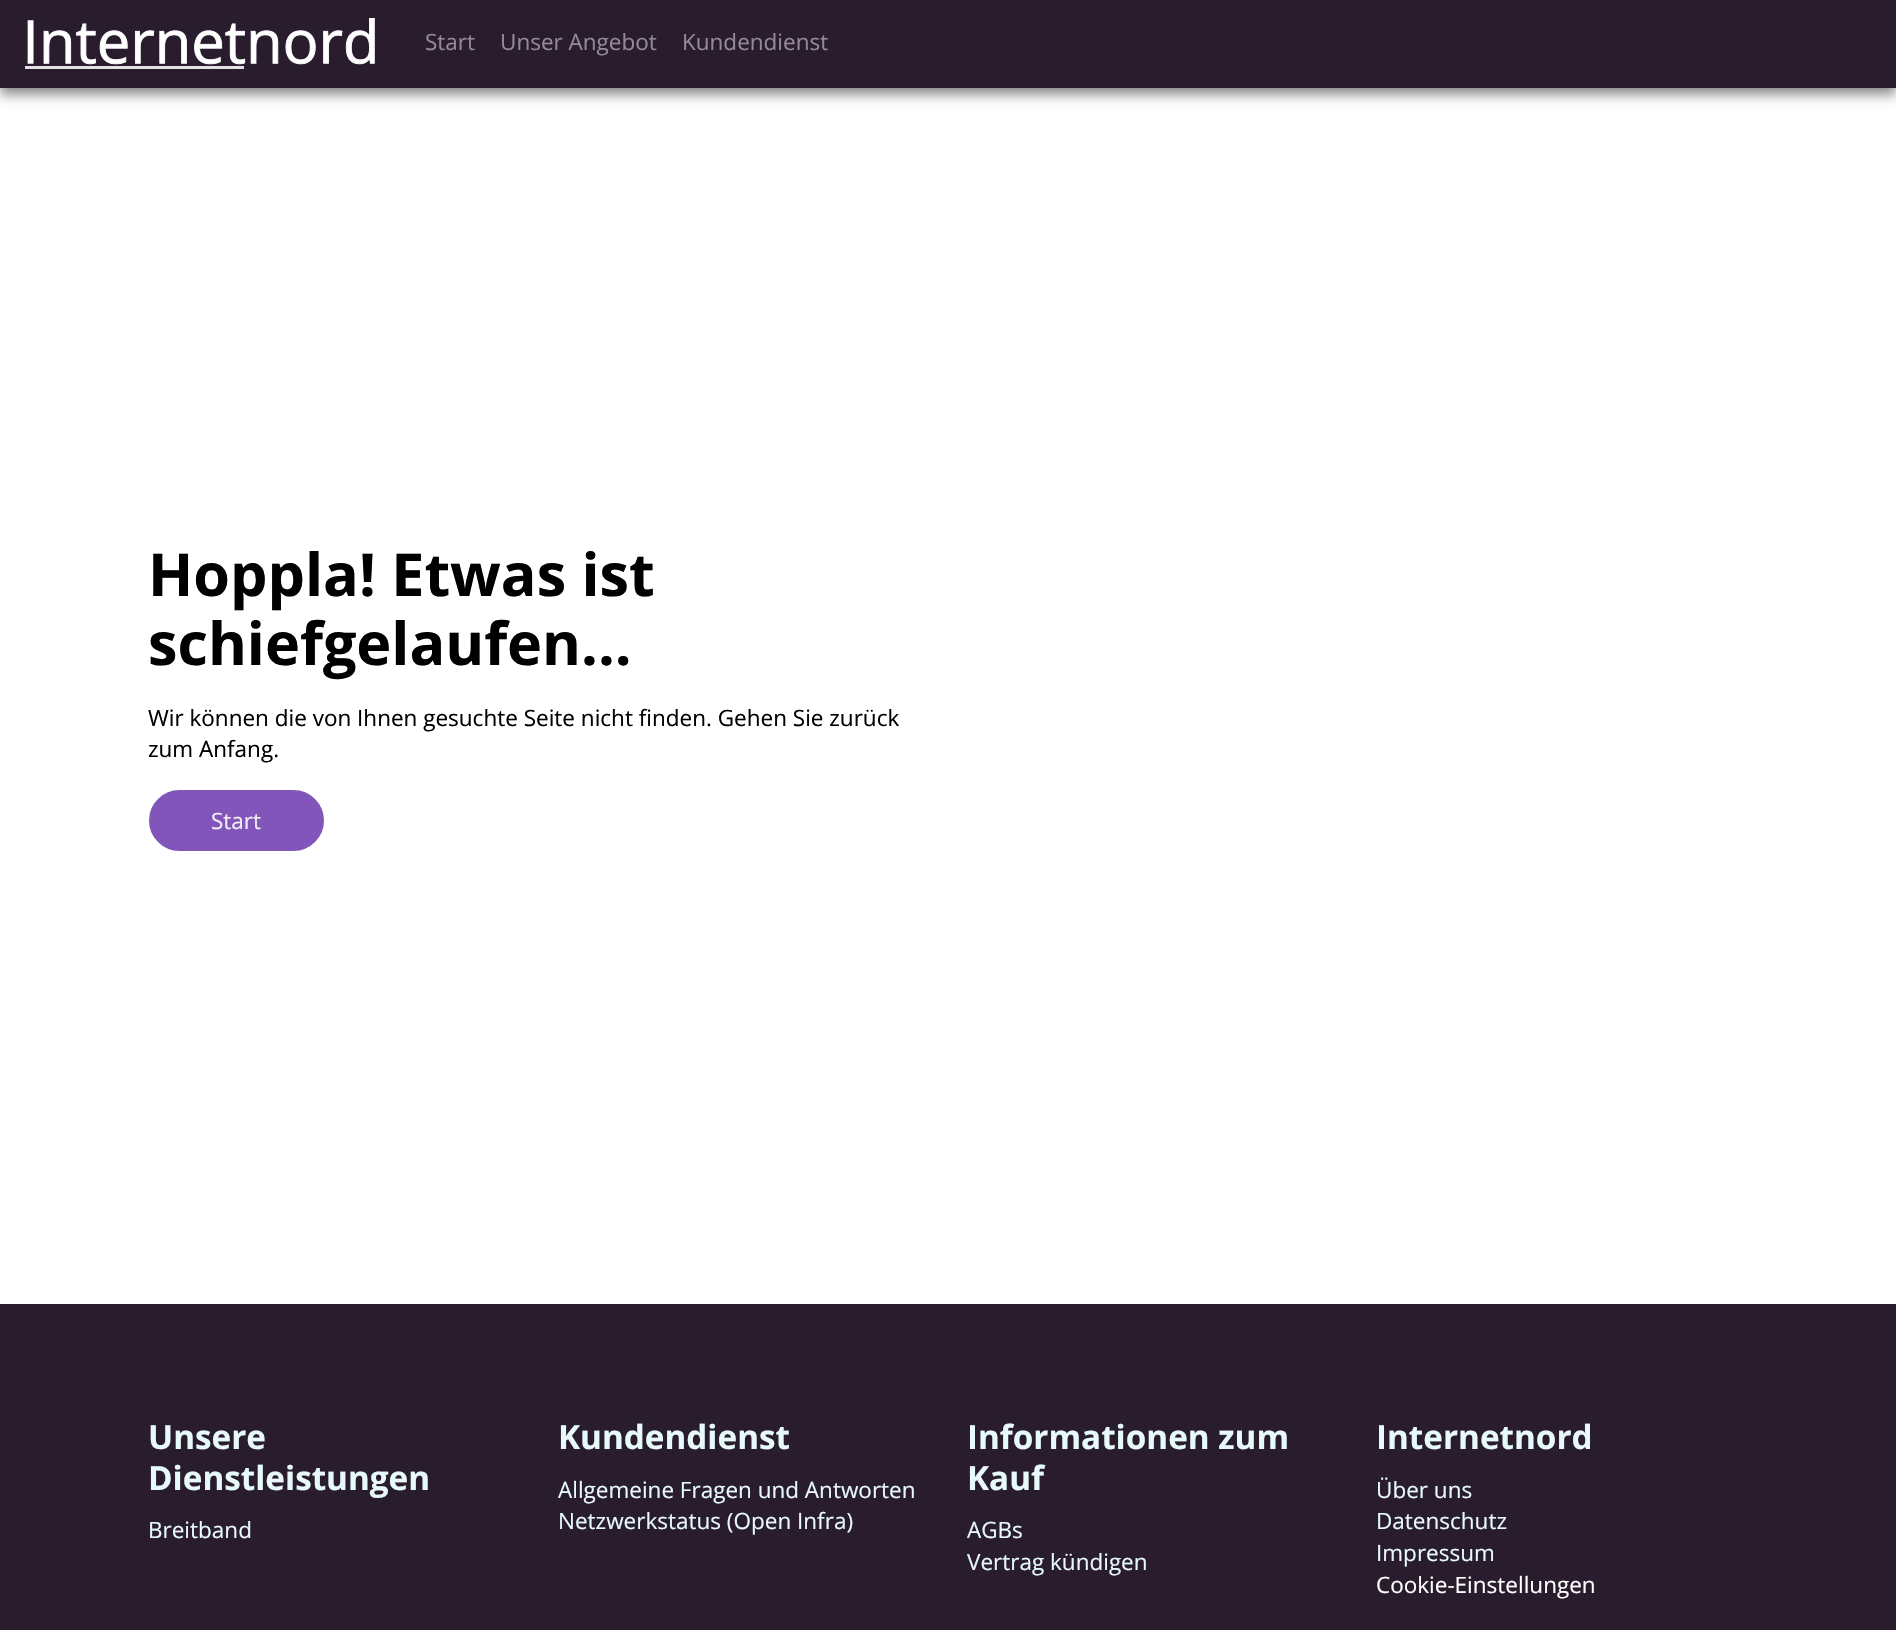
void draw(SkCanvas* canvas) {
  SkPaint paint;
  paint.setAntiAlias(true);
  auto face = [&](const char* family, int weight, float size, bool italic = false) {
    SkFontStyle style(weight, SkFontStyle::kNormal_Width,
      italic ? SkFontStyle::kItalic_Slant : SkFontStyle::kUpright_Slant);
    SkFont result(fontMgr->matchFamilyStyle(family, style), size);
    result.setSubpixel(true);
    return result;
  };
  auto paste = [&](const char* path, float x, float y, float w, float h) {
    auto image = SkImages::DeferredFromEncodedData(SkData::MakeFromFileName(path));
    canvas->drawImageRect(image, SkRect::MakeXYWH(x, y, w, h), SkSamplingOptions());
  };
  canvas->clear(0xffffffff);
  paint.setColor(0x80000000);
  paint.setMaskFilter(SkMaskFilter::MakeBlur(kNormal_SkBlurStyle, 6));
  canvas->drawRect(SkRect::MakeXYWH(0, 6, 1896, 88), paint);
  paint.setMaskFilter(nullptr);
  paint.setColor(0xff281c2d);
  canvas->drawRect(SkRect::MakeXYWH(0, 0, 1896, 88), paint);
  paste("img/1.png", 25, 18, 350, 51);
  paint.setColor(0xff8155ba);
  canvas->drawRoundRect(SkRect::MakeXYWH(150.5f, 791.5f, 172, 58), 29, 29, paint);
  paint.setStroke(true);
  paint.setStrokeWidth(3);
  canvas->drawRoundRect(SkRect::MakeXYWH(150.5f, 791.5f, 172, 58), 29, 29, paint);
  paint.setStroke(false);
  paint.setColor(0xff281c2d);
  canvas->drawRect(SkRect::MakeXYWH(0, 1304, 1896, 326), paint);
  auto f0 = face("Open Sans", 400, 22.5f);
  paint.setColor(0xff94889a);
  {
    const struct { const char* s; float x, y; } items[] = {
      {"Start", 425, 50},
      {"Unser Angebot", 500, 50},
      {"Kundendienst", 682, 50},
    };
    for (auto [s, x, y] : items) {
      canvas->drawString(s, x, y, f0, paint);
    }
  }
  auto f1 = face("Open Sans", 700, 59.25f);
  paint.setColor(0xff000000);
  canvas->drawString("Hoppla! Etwas ist", 148, 596, f1, paint);
  canvas->drawString("schiefgelaufen...", 148, 665, f1, paint);
  canvas->drawString("Wir können die von Ihnen gesuchte Seite nicht finden. Gehen Sie zurück", 148, 726, f0, paint);
  canvas->drawString("zum Anfang.", 148, 757, f0, paint);
  paint.setColor(0xfff2edf8);
  canvas->drawString("Start", 211, 829, f0, paint);
  auto f2 = face("Open Sans", 700, 33.25f);
  paint.setColor(0xffe8f9fc);
  canvas->drawString("Unsere", 148, 1449, f2, paint);
  canvas->drawString("Dienstleistungen", 148, 1490, f2, paint);
  canvas->drawString("Breitband", 148, 1538, f0, paint);
  canvas->drawString("Kundendienst", 558, 1449, f2, paint);
  canvas->drawString("Allgemeine Fragen und Antworten", 558, 1498, f0, paint);
  canvas->drawString("Netzwerkstatus (Open Infra)", 558, 1529, f0, paint);
  canvas->drawString("Informationen zum", 967, 1449, f2, paint);
  canvas->drawString("Kauf", 967, 1490, f2, paint);
  canvas->drawString("AGBs", 967, 1538, f0, paint);
  canvas->drawString("Vertrag kündigen", 967, 1570, f0, paint);
  canvas->drawString("Internetnord", 1376, 1449, f2, paint);
  {
    const struct { const char* s; float x, y; } items[] = {
      {"Über uns", 1376, 1498},
      {"Datenschutz", 1376, 1529},
      {"Impressum", 1376, 1561},
    };
    for (auto [s, x, y] : items) {
      canvas->drawString(s, x, y, f0, paint);
    }
  }
  paint.setColor(0xffffffff);
  canvas->drawString("Cookie-Einstellungen", 1376, 1593, f0, paint);
}
